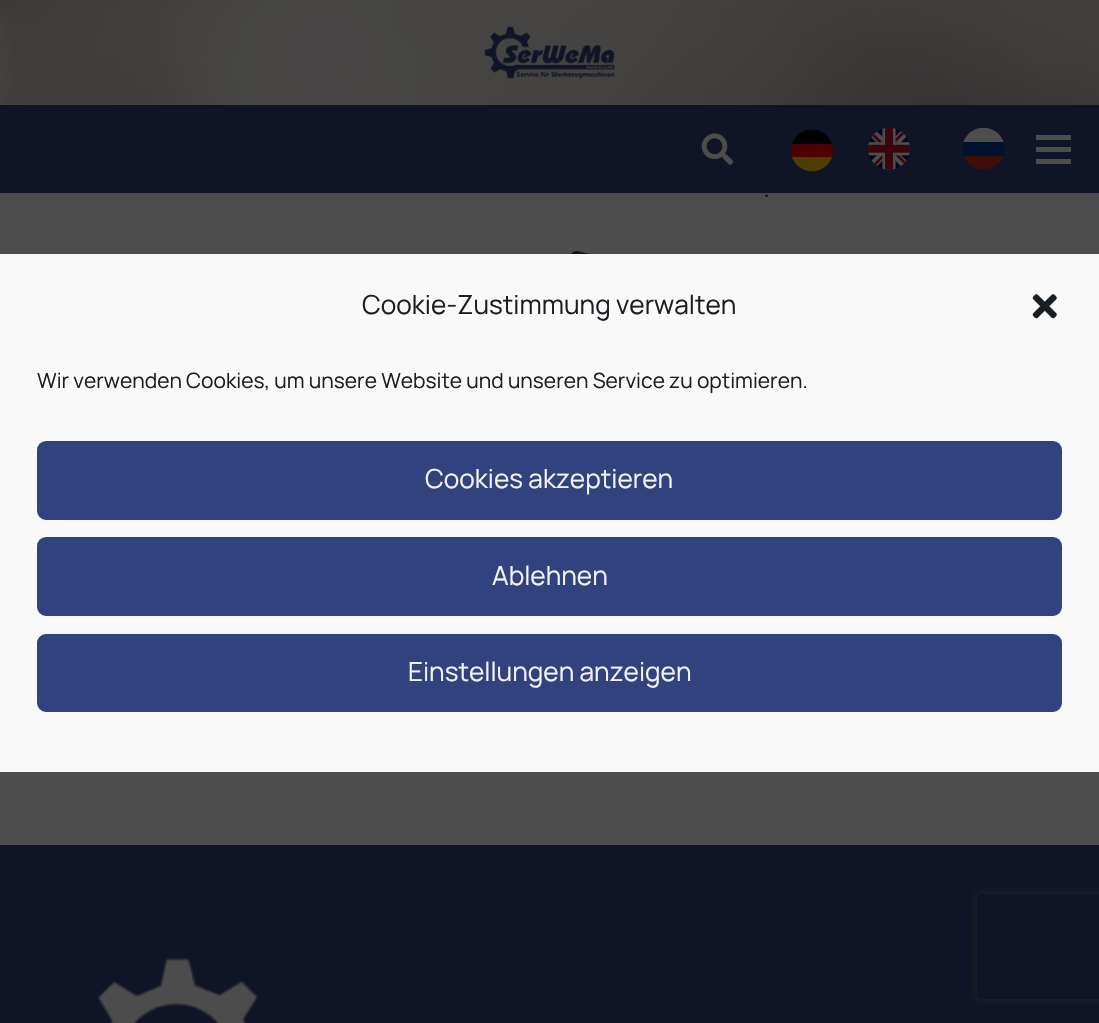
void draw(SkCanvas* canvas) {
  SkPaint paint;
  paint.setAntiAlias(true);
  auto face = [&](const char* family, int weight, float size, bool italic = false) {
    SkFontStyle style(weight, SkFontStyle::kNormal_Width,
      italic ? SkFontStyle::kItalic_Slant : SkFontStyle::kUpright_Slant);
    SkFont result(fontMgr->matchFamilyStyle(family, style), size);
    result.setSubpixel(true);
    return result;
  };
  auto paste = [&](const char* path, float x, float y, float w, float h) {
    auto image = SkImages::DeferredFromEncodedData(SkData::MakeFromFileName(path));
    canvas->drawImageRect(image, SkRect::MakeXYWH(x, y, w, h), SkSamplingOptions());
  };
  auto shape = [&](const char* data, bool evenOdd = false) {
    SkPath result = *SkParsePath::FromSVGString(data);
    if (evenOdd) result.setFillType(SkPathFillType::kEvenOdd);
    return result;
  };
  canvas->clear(0xff4d4d4d);
  paste("img/1.png", 0, 0, 1099, 105);
  paste("img/2.png", 484, 26, 131, 53);
  paint.setColor(0x14000000);
  canvas->drawRect(SkRect::MakeXYWH(0, 193, 1099, 1), paint);
  paint.setColor(0xff0f1426);
  canvas->drawRect(SkRect::MakeXYWH(0, 105, 1099, 88), paint);
  paste("img/3.png", 701, 133, 33, 32);
  paint.setColor(0xff4d3d00);
  canvas->drawPath(shape("M832 157C825.5 176 798.5 176 792 157Z"), paint);
  paint.setColor(0xff000000);
  canvas->drawPath(shape("M792 144C794.5 137 800 131.5 807.5 130H816.5C824 131.5 829.5 137 832 144Z"), paint);
  paint.setColor(0xff4d0000);
  canvas->drawPath(shape("M792 157C791 153 791 148 792 144H832C833 148 833 153 832 157Z"), paint);
  paste("img/4.png", 868, 128, 42, 42);
  canvas->save();
  canvas->clipRect(SkRect::MakeXYWH(963, 128, 42, 42));
  paint.setColor(0xff4d4d4d);
  canvas->drawPath(shape("M963.5 142C970 123 997 123 1003.5 142Z"), paint);
  paint.setColor(0xff001132);
  canvas->drawPath(shape("M964 156C962 152 962 147 964 142H1003C1005 146 1005 152 1003 156Z"), paint);
  canvas->restore();
  paint.setColor(0xff400d09);
  canvas->drawPath(shape("M1003 156C996.5 174 970.5 174 964 156Z"), paint);
  {
    const struct { float x, y, w, h; SkColor color; } items[] = {
      {1036, 147, 35, 5, 0xff4d4d4d},
      {1036, 135, 35, 5, 0xff4d4d4d},
      {1036, 159, 35, 5, 0xff4d4d4d},
    };
    for (auto [x, y, w, h, color] : items) {
      paint.setColor(color);
      canvas->drawRect(SkRect::MakeXYWH(x, y, w, h), paint);
    }
  }
  paint.setColor(0xff0f1426);
  canvas->drawPath(shape("M598 256C601 257 602 258 602 261C602 287 593 310 574 328C556 347 533 356 507 356C504 356 503 355 502 352L497 331C497 328 498 326 500 325L523 316C525 315 527 315 529 317L539 329C555 322 568 309 575 293L563 283C561 281 561 279 562 277L571 254C573 252 574 251 577 251Z"), paint);
  canvas->drawRect(SkRect::MakeXYWH(0, 845, 1099, 178), paint);
  paste("img/5.png", 97, 958, 161, 65);
  paint.setColor(0xfff9f9f9);
  canvas->drawRect(SkRect::MakeXYWH(0, 254, 1099, 518), paint);
  paste("img/6.png", 1032, 294, 25, 25);
  paint.setColor(0xff32427f);
  canvas->drawRoundRect(SkRect::MakeXYWH(38, 442, 1023, 77), 8, 8, paint);
  paint.setStroke(true);
  paint.setStrokeWidth(2);
  canvas->drawRoundRect(SkRect::MakeXYWH(38, 442, 1023, 77), 8, 8, paint);
  paint.setStroke(false);
  canvas->drawRoundRect(SkRect::MakeXYWH(38, 538, 1023, 77), 8, 8, paint);
  paint.setStroke(true);
  canvas->drawRoundRect(SkRect::MakeXYWH(38, 538, 1023, 77), 8, 8, paint);
  paint.setStroke(false);
  canvas->drawRoundRect(SkRect::MakeXYWH(38, 635, 1023, 76), 8, 8, paint);
  paint.setStroke(true);
  canvas->drawRoundRect(SkRect::MakeXYWH(38, 635, 1023, 76), 8, 8, paint);
  canvas->save();
  canvas->clipPath(shape("M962 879H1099V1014H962ZM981 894H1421C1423 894 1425 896 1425 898V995C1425 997 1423 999 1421 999H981C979 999 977 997 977 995V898C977 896 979 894 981 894Z", true), true);
  paint.setStroke(false);
  paint.setColor(0xff262626);
  paint.setMaskFilter(SkMaskFilter::MakeBlur(kNormal_SkBlurStyle, 4.5f));
  canvas->drawRoundRect(SkRect::MakeXYWH(977, 894, 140, 105), 4, 4, paint);
  paint.setMaskFilter(nullptr);
  canvas->restore();
  auto f0 = face("Manrope", 200, 28);
  paint.setColor(0xff161616);
  canvas->drawString(".", 763, 197, f0, paint);
  auto f1 = face("Manrope", 200, 26.25f);
  paint.setColor(0xff191e23);
  canvas->drawString("Cookie-Zustimmung verwalten", 362, 314, f1, paint);
  auto f2 = face("Manrope", 200, 21);
  canvas->drawString("Wir verwenden Cookies, um unsere Website und unseren Service zu optimieren.", 37, 388, f2, paint);
  paint.setColor(0xfff4f4f4);
  {
    const struct { const char* s; float x, y; } items[] = {
      {"Cookies akzeptieren", 425, 488},
      {"Ablehnen", 492, 585},
      {"Einstellungen anzeigen", 408, 681},
    };
    for (auto [s, x, y] : items) {
      canvas->drawString(s, x, y, f1, paint);
    }
  }
}
